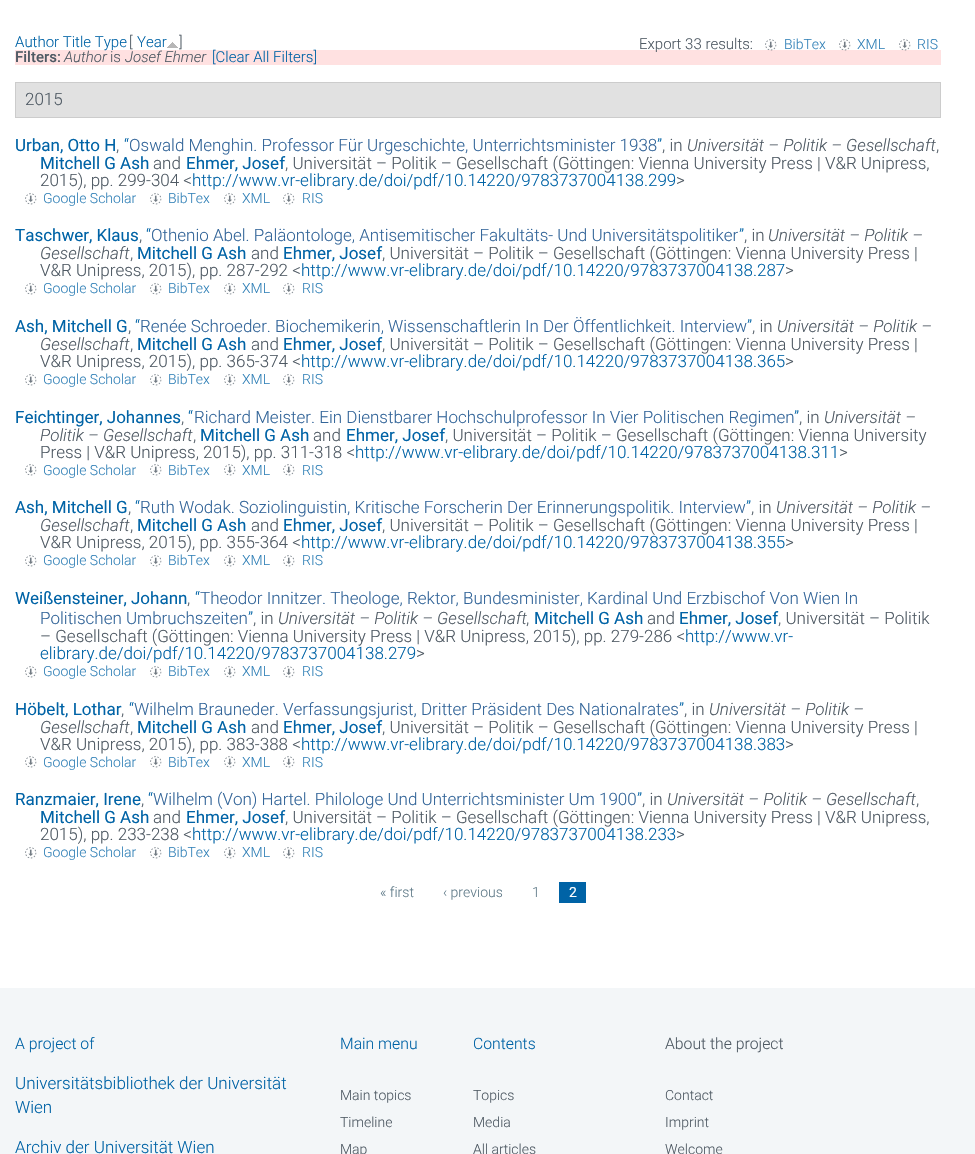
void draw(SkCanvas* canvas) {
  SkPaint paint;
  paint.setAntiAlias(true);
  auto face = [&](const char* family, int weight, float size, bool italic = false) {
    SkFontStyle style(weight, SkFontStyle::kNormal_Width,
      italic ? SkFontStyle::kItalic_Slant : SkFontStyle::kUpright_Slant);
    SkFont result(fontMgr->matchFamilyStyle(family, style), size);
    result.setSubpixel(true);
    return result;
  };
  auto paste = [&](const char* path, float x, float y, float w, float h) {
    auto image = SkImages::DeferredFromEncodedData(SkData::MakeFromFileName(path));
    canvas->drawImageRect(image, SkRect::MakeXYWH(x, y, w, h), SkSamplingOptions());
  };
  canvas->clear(0xffffffff);
  paste("img/1.png", 167, 42, 11, 6);
  paint.setColor(0xffffe1e1);
  canvas->drawRect(SkRect::MakeXYWH(15, 50, 926, 15), paint);
  paste("img/2.png", 765, 39, 12, 12);
  paste("img/2.png", 839, 39, 12, 12);
  paste("img/2.png", 899, 39, 12, 12);
  paint.setColor(0xffe1e1e1);
  canvas->drawRect(SkRect::MakeXYWH(15.5f, 82.5f, 925, 35), paint);
  paint.setStroke(true);
  paint.setStrokeWidth(1);
  paint.setColor(0xffcccccc);
  canvas->drawRect(SkRect::MakeXYWH(15.5f, 82.5f, 925, 35), paint);
  paste("img/3.png", 25, 193, 12, 12);
  paste("img/3.png", 150, 193, 12, 12);
  paste("img/3.png", 224, 193, 12, 12);
  paste("img/3.png", 283, 193, 12, 12);
  paste("img/3.png", 25, 283, 12, 12);
  paste("img/3.png", 150, 283, 12, 12);
  paste("img/3.png", 224, 283, 12, 12);
  paste("img/3.png", 283, 283, 12, 12);
  paste("img/3.png", 25, 374, 12, 12);
  paste("img/3.png", 150, 374, 12, 12);
  paste("img/3.png", 224, 374, 12, 12);
  paste("img/3.png", 283, 374, 12, 12);
  paste("img/3.png", 25, 464, 12, 12);
  paste("img/3.png", 150, 464, 12, 12);
  paste("img/3.png", 224, 464, 12, 12);
  paste("img/3.png", 283, 464, 12, 12);
  paste("img/3.png", 25, 555, 12, 12);
  paste("img/3.png", 150, 555, 12, 12);
  paste("img/3.png", 224, 555, 12, 12);
  paste("img/3.png", 283, 555, 12, 12);
  paste("img/3.png", 25, 666, 12, 12);
  paste("img/3.png", 150, 666, 12, 12);
  paste("img/3.png", 224, 666, 12, 12);
  paste("img/3.png", 283, 666, 12, 12);
  paste("img/3.png", 25, 756, 12, 12);
  paste("img/3.png", 150, 756, 12, 12);
  paste("img/3.png", 224, 756, 12, 12);
  paste("img/3.png", 283, 756, 12, 12);
  paste("img/3.png", 25, 847, 12, 12);
  paste("img/3.png", 150, 847, 12, 12);
  paste("img/3.png", 224, 847, 12, 12);
  paste("img/3.png", 283, 847, 12, 12);
  paint.setStroke(false);
  paint.setColor(0xff0063a6);
  canvas->drawRect(SkRect::MakeXYWH(559, 882, 27, 21), paint);
  paint.setColor(0xfff3f6f8);
  canvas->drawRect(SkRect::MakeXYWH(0, 988, 975, 166), paint);
  auto f0 = face("Roboto", 300, 15);
  paint.setColor(0xff0063a6);
  canvas->drawString("Author Title Type", 15, 47, f0, paint);
  paint.setColor(0xff4f5a64);
  canvas->drawString("[", 129, 47, f0, paint);
  paint.setColor(0xff0063a6);
  canvas->drawString("Year", 137, 47, f0, paint);
  paint.setColor(0xff4f5a64);
  canvas->drawString("]", 179, 47, f0, paint);
  canvas->drawString("Export 33 results:", 639, 49, f0, paint);
  auto f1 = face("Roboto", 300, 14);
  paint.setColor(0xff3382b8);
  {
    const struct { const char* s; float x, y; } items[] = {
      {"BibTex", 784, 49},
      {"XML", 857, 49},
      {"RIS", 917, 49},
    };
    for (auto [s, x, y] : items) {
      canvas->drawString(s, x, y, f1, paint);
    }
  }
  auto f2 = face("Roboto", 500, 15);
  paint.setColor(0xff4f5a64);
  canvas->drawString("Filters:", 15, 62, f2, paint);
  auto f3 = face("Roboto", 300, 15, true);
  canvas->drawString("Author", 64, 62, f3, paint);
  canvas->drawString("is", 110, 62, f0, paint);
  canvas->drawString("Josef Ehmer", 125, 62, f3, paint);
  paint.setColor(0xff0063a6);
  canvas->drawString("[Clear All Filters]", 212, 62, f0, paint);
  auto f4 = face("Roboto", 300, 17);
  paint.setColor(0xff4f5a64);
  canvas->drawString("2015", 25, 105, f4, paint);
  auto f5 = face("Roboto", 400, 17);
  paint.setColor(0xff0063a6);
  canvas->drawString("Urban, Otto H", 15, 151, f5, paint);
  paint.setColor(0xff4f5a64);
  canvas->drawString(",", 116, 151, f4, paint);
  paint.setColor(0xff0063a6);
  canvas->drawString("“", 124, 151, f4, paint);
  paint.setColor(0xff336599);
  canvas->drawString("Oswald Menghin. Professor Für Urgeschichte, Unterrichtsminister 1938", 129, 151, f4, paint);
  paint.setColor(0xff0063a6);
  canvas->drawString("”", 657, 151, f4, paint);
  paint.setColor(0xff4f5a64);
  canvas->drawString(", in", 662, 151, f4, paint);
  auto f6 = face("Roboto", 300, 17, true);
  canvas->drawString("Universität – Politik – Gesellschaft", 687, 151, f6, paint);
  canvas->drawString(",", 936, 151, f4, paint);
  paint.setColor(0xff0063a6);
  canvas->drawString("Mitchell G Ash", 40, 169, f5, paint);
  paint.setColor(0xff4f5a64);
  canvas->drawString("and", 153, 169, f4, paint);
  paint.setColor(0xff0063a6);
  canvas->drawString("Ehmer, Josef", 186, 169, f5, paint);
  paint.setColor(0xff4f5a64);
  canvas->drawString(", Universität – Politik – Gesellschaft (Göttingen: Vienna University Press | V&R Unipress,", 285, 169, f4, paint);
  canvas->drawString("2015), pp. 299-304 <", 40, 186, f4, paint);
  paint.setColor(0xff0063a6);
  canvas->drawString("http://www.vr-elibrary.de/doi/pdf/10.14220/9783737004138.299", 192, 186, f4, paint);
  paint.setColor(0xff4f5a64);
  canvas->drawString(">", 676, 186, f4, paint);
  paint.setColor(0xff3382b8);
  {
    const struct { const char* s; float x, y; } items[] = {
      {"Google Scholar", 43, 203},
      {"BibTex", 168, 203},
      {"XML", 242, 203},
      {"RIS", 302, 203},
    };
    for (auto [s, x, y] : items) {
      canvas->drawString(s, x, y, f1, paint);
    }
  }
  paint.setColor(0xff0063a6);
  canvas->drawString("Taschwer, Klaus", 15, 241, f5, paint);
  paint.setColor(0xff4f5a64);
  canvas->drawString(",", 139, 241, f4, paint);
  paint.setColor(0xff0063a6);
  canvas->drawString("“", 146, 241, f4, paint);
  paint.setColor(0xff336599);
  canvas->drawString("Othenio Abel. Paläontologe, Antisemitischer Fakultäts- Und Universitätspolitiker", 151, 241, f4, paint);
  paint.setColor(0xff0063a6);
  canvas->drawString("”", 739, 241, f4, paint);
  paint.setColor(0xff4f5a64);
  canvas->drawString(", in", 744, 241, f4, paint);
  canvas->drawString("Universität – Politik –", 768, 241, f6, paint);
  canvas->drawString("Gesellschaft", 40, 259, f6, paint);
  canvas->drawString(",", 130, 259, f4, paint);
  paint.setColor(0xff0063a6);
  canvas->drawString("Mitchell G Ash", 137, 259, f5, paint);
  paint.setColor(0xff4f5a64);
  canvas->drawString("and", 251, 259, f4, paint);
  paint.setColor(0xff0063a6);
  canvas->drawString("Ehmer, Josef", 283, 259, f5, paint);
  paint.setColor(0xff4f5a64);
  canvas->drawString(", Universität – Politik – Gesellschaft (Göttingen: Vienna University Press |", 382, 259, f4, paint);
  canvas->drawString("V&R Unipress, 2015), pp. 287-292 <", 40, 276, f4, paint);
  paint.setColor(0xff0063a6);
  canvas->drawString("http://www.vr-elibrary.de/doi/pdf/10.14220/9783737004138.287", 301, 276, f4, paint);
  paint.setColor(0xff4f5a64);
  canvas->drawString(">", 785, 276, f4, paint);
  paint.setColor(0xff3382b8);
  {
    const struct { const char* s; float x, y; } items[] = {
      {"Google Scholar", 43, 293},
      {"BibTex", 168, 293},
      {"XML", 242, 293},
      {"RIS", 302, 293},
    };
    for (auto [s, x, y] : items) {
      canvas->drawString(s, x, y, f1, paint);
    }
  }
  paint.setColor(0xff0063a6);
  canvas->drawString("Ash, Mitchell G", 15, 332, f5, paint);
  paint.setColor(0xff4f5a64);
  canvas->drawString(",", 128, 332, f4, paint);
  paint.setColor(0xff0063a6);
  canvas->drawString("“", 135, 332, f4, paint);
  paint.setColor(0xff336599);
  canvas->drawString("Renée Schroeder. Biochemikerin, Wissenschaftlerin In Der Öffentlichkeit. Interview", 140, 332, f4, paint);
  paint.setColor(0xff0063a6);
  canvas->drawString("”", 747, 332, f4, paint);
  paint.setColor(0xff4f5a64);
  canvas->drawString(", in", 752, 332, f4, paint);
  canvas->drawString("Universität – Politik –", 777, 332, f6, paint);
  canvas->drawString("Gesellschaft", 40, 350, f6, paint);
  canvas->drawString(",", 130, 350, f4, paint);
  paint.setColor(0xff0063a6);
  canvas->drawString("Mitchell G Ash", 137, 350, f5, paint);
  paint.setColor(0xff4f5a64);
  canvas->drawString("and", 251, 350, f4, paint);
  paint.setColor(0xff0063a6);
  canvas->drawString("Ehmer, Josef", 283, 350, f5, paint);
  paint.setColor(0xff4f5a64);
  canvas->drawString(", Universität – Politik – Gesellschaft (Göttingen: Vienna University Press |", 382, 350, f4, paint);
  canvas->drawString("V&R Unipress, 2015), pp. 365-374 <", 40, 367, f4, paint);
  paint.setColor(0xff0063a6);
  canvas->drawString("http://www.vr-elibrary.de/doi/pdf/10.14220/9783737004138.365", 301, 367, f4, paint);
  paint.setColor(0xff4f5a64);
  canvas->drawString(">", 785, 367, f4, paint);
  paint.setColor(0xff3382b8);
  {
    const struct { const char* s; float x, y; } items[] = {
      {"Google Scholar", 43, 384},
      {"BibTex", 168, 384},
      {"XML", 242, 384},
      {"RIS", 302, 384},
    };
    for (auto [s, x, y] : items) {
      canvas->drawString(s, x, y, f1, paint);
    }
  }
  paint.setColor(0xff0063a6);
  canvas->drawString("Feichtinger, Johannes", 15, 423, f5, paint);
  paint.setColor(0xff4f5a64);
  canvas->drawString(",", 181, 423, f4, paint);
  paint.setColor(0xff0063a6);
  canvas->drawString("“", 188, 423, f4, paint);
  paint.setColor(0xff336599);
  canvas->drawString("Richard Meister. Ein Dienstbarer Hochschulprofessor In Vier Politischen Regimen", 194, 423, f4, paint);
  paint.setColor(0xff0063a6);
  canvas->drawString("”", 794, 423, f4, paint);
  paint.setColor(0xff4f5a64);
  canvas->drawString(", in", 799, 423, f4, paint);
  canvas->drawString("Universität –", 824, 423, f6, paint);
  canvas->drawString("Politik – Gesellschaft", 40, 441, f6, paint);
  canvas->drawString(",", 193, 441, f4, paint);
  paint.setColor(0xff0063a6);
  canvas->drawString("Mitchell G Ash", 200, 441, f5, paint);
  paint.setColor(0xff4f5a64);
  canvas->drawString("and", 313, 441, f4, paint);
  paint.setColor(0xff0063a6);
  canvas->drawString("Ehmer, Josef", 346, 441, f5, paint);
  paint.setColor(0xff4f5a64);
  canvas->drawString(", Universität – Politik – Gesellschaft (Göttingen: Vienna University", 445, 441, f4, paint);
  canvas->drawString("Press | V&R Unipress, 2015), pp. 311-318 <", 40, 458, f4, paint);
  paint.setColor(0xff0063a6);
  canvas->drawString("http://www.vr-elibrary.de/doi/pdf/10.14220/9783737004138.311", 355, 458, f4, paint);
  paint.setColor(0xff4f5a64);
  canvas->drawString(">", 839, 458, f4, paint);
  paint.setColor(0xff3382b8);
  {
    const struct { const char* s; float x, y; } items[] = {
      {"Google Scholar", 43, 475},
      {"BibTex", 168, 475},
      {"XML", 242, 475},
      {"RIS", 302, 475},
    };
    for (auto [s, x, y] : items) {
      canvas->drawString(s, x, y, f1, paint);
    }
  }
  paint.setColor(0xff0063a6);
  canvas->drawString("Ash, Mitchell G", 15, 513, f5, paint);
  paint.setColor(0xff4f5a64);
  canvas->drawString(",", 128, 513, f4, paint);
  paint.setColor(0xff0063a6);
  canvas->drawString("“", 135, 513, f4, paint);
  paint.setColor(0xff336599);
  canvas->drawString("Ruth Wodak. Soziolinguistin, Kritische Forscherin Der Erinnerungspolitik. Interview", 140, 513, f4, paint);
  paint.setColor(0xff0063a6);
  canvas->drawString("”", 746, 513, f4, paint);
  paint.setColor(0xff4f5a64);
  canvas->drawString(", in", 751, 513, f4, paint);
  canvas->drawString("Universität – Politik –", 776, 513, f6, paint);
  canvas->drawString("Gesellschaft", 40, 531, f6, paint);
  canvas->drawString(",", 130, 531, f4, paint);
  paint.setColor(0xff0063a6);
  canvas->drawString("Mitchell G Ash", 137, 531, f5, paint);
  paint.setColor(0xff4f5a64);
  canvas->drawString("and", 251, 531, f4, paint);
  paint.setColor(0xff0063a6);
  canvas->drawString("Ehmer, Josef", 283, 531, f5, paint);
  paint.setColor(0xff4f5a64);
  canvas->drawString(", Universität – Politik – Gesellschaft (Göttingen: Vienna University Press |", 382, 531, f4, paint);
  canvas->drawString("V&R Unipress, 2015), pp. 355-364 <", 40, 548, f4, paint);
  paint.setColor(0xff0063a6);
  canvas->drawString("http://www.vr-elibrary.de/doi/pdf/10.14220/9783737004138.355", 301, 548, f4, paint);
  paint.setColor(0xff4f5a64);
  canvas->drawString(">", 785, 548, f4, paint);
  paint.setColor(0xff3382b8);
  {
    const struct { const char* s; float x, y; } items[] = {
      {"Google Scholar", 43, 565},
      {"BibTex", 168, 565},
      {"XML", 242, 565},
      {"RIS", 302, 565},
    };
    for (auto [s, x, y] : items) {
      canvas->drawString(s, x, y, f1, paint);
    }
  }
  paint.setColor(0xff0063a6);
  canvas->drawString("Weißensteiner, Johann", 15, 604, f5, paint);
  paint.setColor(0xff4f5a64);
  canvas->drawString(",", 187, 604, f4, paint);
  paint.setColor(0xff0063a6);
  canvas->drawString("“", 195, 604, f4, paint);
  paint.setColor(0xff336599);
  canvas->drawString("Theodor Innitzer. Theologe, Rektor, Bundesminister, Kardinal Und Erzbischof Von Wien In", 200, 604, f4, paint);
  canvas->drawString("Politischen Umbruchszeiten", 40, 624, f4, paint);
  paint.setColor(0xff0063a6);
  canvas->drawString("”", 248, 624, f4, paint);
  paint.setColor(0xff4f5a64);
  canvas->drawString(", in", 253, 624, f4, paint);
  canvas->drawString("Universität – Politik – Gesellschaft", 278, 624, f6, paint);
  canvas->drawString(",", 526, 624, f4, paint);
  paint.setColor(0xff0063a6);
  canvas->drawString("Mitchell G Ash", 534, 624, f5, paint);
  paint.setColor(0xff4f5a64);
  canvas->drawString("and", 647, 624, f4, paint);
  paint.setColor(0xff0063a6);
  canvas->drawString("Ehmer, Josef", 679, 624, f5, paint);
  paint.setColor(0xff4f5a64);
  canvas->drawString(", Universität – Politik", 778, 624, f4, paint);
  canvas->drawString("– Gesellschaft (Göttingen: Vienna University Press | V&R Unipress, 2015), pp. 279-286 <", 40, 642, f4, paint);
  paint.setColor(0xff0063a6);
  canvas->drawString("http://www.vr-", 685, 642, f4, paint);
  canvas->drawString("elibrary.de/doi/pdf/10.14220/9783737004138.279", 40, 659, f4, paint);
  paint.setColor(0xff4f5a64);
  canvas->drawString(">", 416, 659, f4, paint);
  paint.setColor(0xff3382b8);
  {
    const struct { const char* s; float x, y; } items[] = {
      {"Google Scholar", 43, 676},
      {"BibTex", 168, 676},
      {"XML", 242, 676},
      {"RIS", 302, 676},
    };
    for (auto [s, x, y] : items) {
      canvas->drawString(s, x, y, f1, paint);
    }
  }
  paint.setColor(0xff0063a6);
  canvas->drawString("Höbelt, Lothar", 15, 715, f5, paint);
  paint.setColor(0xff4f5a64);
  canvas->drawString(",", 121, 715, f4, paint);
  paint.setColor(0xff0063a6);
  canvas->drawString("“", 129, 715, f4, paint);
  paint.setColor(0xff336599);
  canvas->drawString("Wilhelm Brauneder. Verfassungsjurist, Dritter Präsident Des Nationalrates", 134, 715, f4, paint);
  paint.setColor(0xff0063a6);
  canvas->drawString("”", 679, 715, f4, paint);
  paint.setColor(0xff4f5a64);
  canvas->drawString(", in", 684, 715, f4, paint);
  canvas->drawString("Universität – Politik –", 709, 715, f6, paint);
  canvas->drawString("Gesellschaft", 40, 733, f6, paint);
  canvas->drawString(",", 130, 733, f4, paint);
  paint.setColor(0xff0063a6);
  canvas->drawString("Mitchell G Ash", 137, 733, f5, paint);
  paint.setColor(0xff4f5a64);
  canvas->drawString("and", 251, 733, f4, paint);
  paint.setColor(0xff0063a6);
  canvas->drawString("Ehmer, Josef", 283, 733, f5, paint);
  paint.setColor(0xff4f5a64);
  canvas->drawString(", Universität – Politik – Gesellschaft (Göttingen: Vienna University Press |", 382, 733, f4, paint);
  canvas->drawString("V&R Unipress, 2015), pp. 383-388 <", 40, 750, f4, paint);
  paint.setColor(0xff0063a6);
  canvas->drawString("http://www.vr-elibrary.de/doi/pdf/10.14220/9783737004138.383", 301, 750, f4, paint);
  paint.setColor(0xff4f5a64);
  canvas->drawString(">", 785, 750, f4, paint);
  paint.setColor(0xff3382b8);
  {
    const struct { const char* s; float x, y; } items[] = {
      {"Google Scholar", 43, 767},
      {"BibTex", 168, 767},
      {"XML", 242, 767},
      {"RIS", 302, 767},
    };
    for (auto [s, x, y] : items) {
      canvas->drawString(s, x, y, f1, paint);
    }
  }
  paint.setColor(0xff0063a6);
  canvas->drawString("Ranzmaier, Irene", 15, 805, f5, paint);
  paint.setColor(0xff4f5a64);
  canvas->drawString(",", 141, 805, f4, paint);
  paint.setColor(0xff0063a6);
  canvas->drawString("“", 148, 805, f4, paint);
  paint.setColor(0xff336599);
  canvas->drawString("Wilhelm (Von) Hartel. Philologe Und Unterrichtsminister Um 1900", 153, 805, f4, paint);
  paint.setColor(0xff0063a6);
  canvas->drawString("”", 637, 805, f4, paint);
  paint.setColor(0xff4f5a64);
  canvas->drawString(", in", 642, 805, f4, paint);
  canvas->drawString("Universität – Politik – Gesellschaft", 667, 805, f6, paint);
  canvas->drawString(",", 916, 805, f4, paint);
  paint.setColor(0xff0063a6);
  canvas->drawString("Mitchell G Ash", 40, 823, f5, paint);
  paint.setColor(0xff4f5a64);
  canvas->drawString("and", 153, 823, f4, paint);
  paint.setColor(0xff0063a6);
  canvas->drawString("Ehmer, Josef", 186, 823, f5, paint);
  paint.setColor(0xff4f5a64);
  canvas->drawString(", Universität – Politik – Gesellschaft (Göttingen: Vienna University Press | V&R Unipress,", 285, 823, f4, paint);
  canvas->drawString("2015), pp. 233-238 <", 40, 840, f4, paint);
  paint.setColor(0xff0063a6);
  canvas->drawString("http://www.vr-elibrary.de/doi/pdf/10.14220/9783737004138.233", 192, 840, f4, paint);
  paint.setColor(0xff4f5a64);
  canvas->drawString(">", 676, 840, f4, paint);
  paint.setColor(0xff3382b8);
  {
    const struct { const char* s; float x, y; } items[] = {
      {"Google Scholar", 43, 857},
      {"BibTex", 168, 857},
      {"XML", 242, 857},
      {"RIS", 302, 857},
    };
    for (auto [s, x, y] : items) {
      canvas->drawString(s, x, y, f1, paint);
    }
  }
  paint.setColor(0xff5f7a88);
  {
    const struct { const char* s; float x, y; } items[] = {
      {"« first", 380, 897},
      {"‹ previous", 443, 897},
      {"1", 532, 897},
    };
    for (auto [s, x, y] : items) {
      canvas->drawString(s, x, y, f1, paint);
    }
  }
  auto f7 = face("Roboto", 400, 14);
  paint.setColor(0xffffffff);
  canvas->drawString("2", 569, 897, f7, paint);
  auto f8 = face("Roboto", 300, 15.75f);
  paint.setColor(0xff0063a6);
  canvas->drawString("A project of", 15, 1049, f8, paint);
  {
    const struct { const char* s; float x, y; } items[] = {
      {"Universitätsbibliothek der Universität", 15, 1089},
      {"Wien", 15, 1113},
      {"Archiv der Universität Wien", 15, 1153},
    };
    for (auto [s, x, y] : items) {
      canvas->drawString(s, x, y, f4, paint);
    }
  }
  canvas->drawString("Main menu", 340, 1049, f8, paint);
  paint.setColor(0xff4f5a64);
  {
    const struct { const char* s; float x, y; } items[] = {
      {"Main topics", 340, 1100},
      {"Timeline", 340, 1127},
      {"Map", 340, 1154},
    };
    for (auto [s, x, y] : items) {
      canvas->drawString(s, x, y, f1, paint);
    }
  }
  paint.setColor(0xff0063a6);
  canvas->drawString("Contents", 473, 1049, f8, paint);
  paint.setColor(0xff4f5a64);
  {
    const struct { const char* s; float x, y; } items[] = {
      {"Topics", 473, 1100},
      {"Media", 473, 1127},
      {"All articles", 473, 1154},
    };
    for (auto [s, x, y] : items) {
      canvas->drawString(s, x, y, f1, paint);
    }
  }
  canvas->drawString("About the project", 665, 1049, f8, paint);
  {
    const struct { const char* s; float x, y; } items[] = {
      {"Contact", 665, 1100},
      {"Imprint", 665, 1127},
      {"Welcome", 665, 1154},
    };
    for (auto [s, x, y] : items) {
      canvas->drawString(s, x, y, f1, paint);
    }
  }
}
